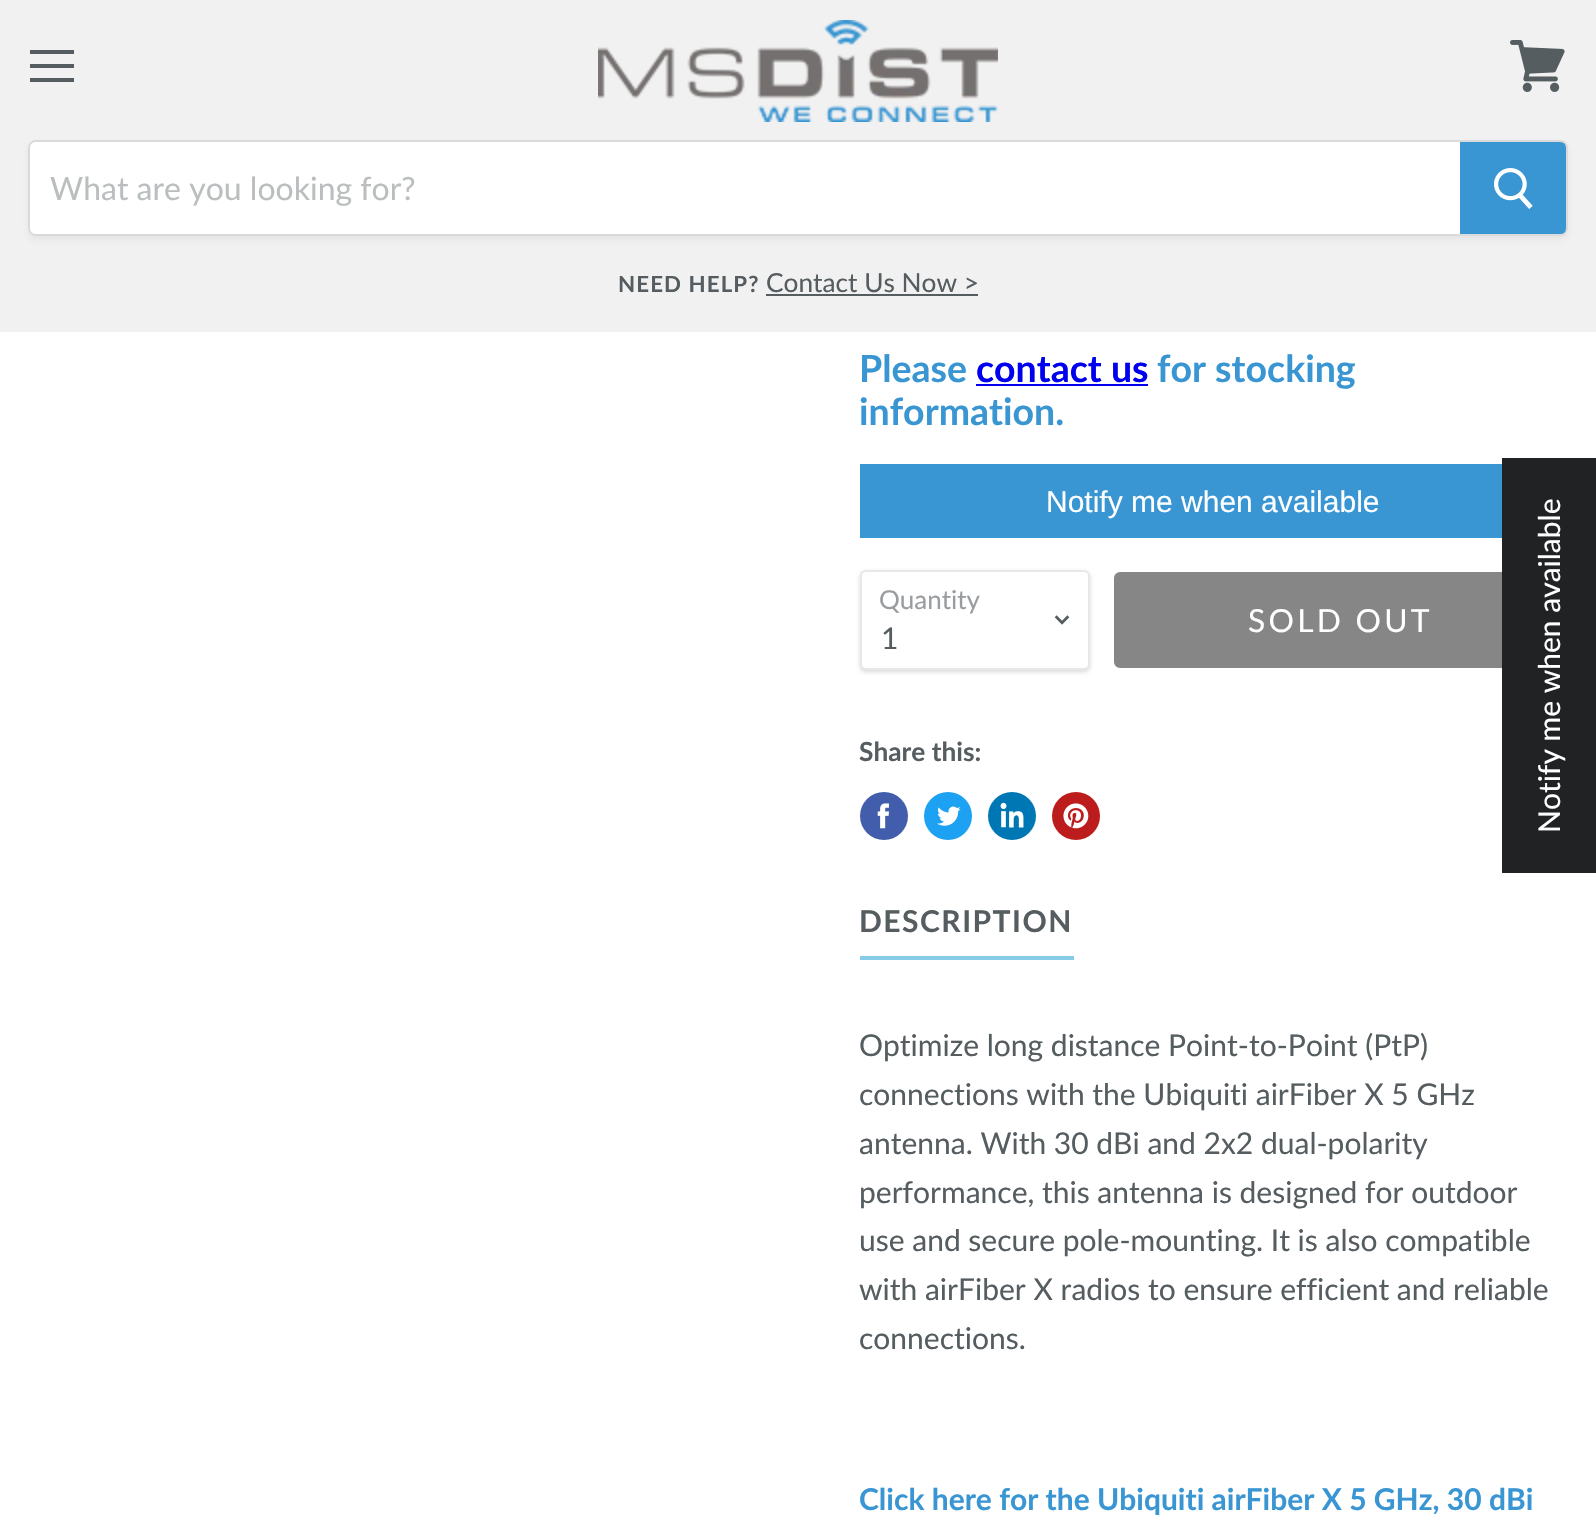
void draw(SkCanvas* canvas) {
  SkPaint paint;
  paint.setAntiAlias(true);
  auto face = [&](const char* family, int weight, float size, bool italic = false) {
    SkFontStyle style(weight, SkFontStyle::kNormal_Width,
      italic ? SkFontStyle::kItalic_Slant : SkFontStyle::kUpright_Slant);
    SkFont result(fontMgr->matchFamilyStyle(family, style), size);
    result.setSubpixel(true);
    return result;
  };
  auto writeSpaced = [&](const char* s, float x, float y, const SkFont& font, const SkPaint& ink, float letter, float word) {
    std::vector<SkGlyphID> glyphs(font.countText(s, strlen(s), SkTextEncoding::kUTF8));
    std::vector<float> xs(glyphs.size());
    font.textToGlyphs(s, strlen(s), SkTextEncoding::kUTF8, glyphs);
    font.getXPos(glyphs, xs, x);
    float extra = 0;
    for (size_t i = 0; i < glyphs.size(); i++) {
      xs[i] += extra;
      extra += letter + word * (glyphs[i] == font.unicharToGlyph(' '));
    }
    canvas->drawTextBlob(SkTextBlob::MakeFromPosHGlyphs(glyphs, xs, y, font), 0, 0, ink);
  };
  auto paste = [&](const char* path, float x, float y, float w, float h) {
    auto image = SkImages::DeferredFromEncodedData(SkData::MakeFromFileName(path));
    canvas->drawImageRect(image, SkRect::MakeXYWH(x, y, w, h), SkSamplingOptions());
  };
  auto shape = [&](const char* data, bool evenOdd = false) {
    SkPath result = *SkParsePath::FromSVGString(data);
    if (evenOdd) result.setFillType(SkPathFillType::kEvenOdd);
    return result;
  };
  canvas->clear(0xffffffff);
  {
    const struct { float x, y, w, h; SkColor color; } items[] = {
      {0, 0, 1596, 332, 0xfff1f1f1},
      {30, 50, 44, 4, 0xff555d60},
      {30, 64, 44, 4, 0xff555d60},
      {30, 78, 44, 4, 0xff555d60},
    };
    for (auto [x, y, w, h, color] : items) {
      paint.setColor(color);
      canvas->drawRect(SkRect::MakeXYWH(x, y, w, h), paint);
    }
  }
  paste("img/1.png", 1510, 40, 55, 52);
  paste("img/2.png", 598, 20, 400, 102);
  canvas->save();
  canvas->clipPath(shape("M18 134H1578V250H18ZM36 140H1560C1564.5 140 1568 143.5 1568 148V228C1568 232.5 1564.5 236 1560 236H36C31.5 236 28 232.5 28 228V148C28 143.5 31.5 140 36 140Z", true), true);
  paint.setColor(0x1c7f7f7f);
  paint.setMaskFilter(SkMaskFilter::MakeBlur(kNormal_SkBlurStyle, 3));
  canvas->drawRoundRect(SkRect::MakeXYWH(28, 144, 1540, 96), 8, 8, paint);
  paint.setMaskFilter(nullptr);
  canvas->restore();
  paint.setStroke(true);
  paint.setStrokeWidth(2);
  paint.setColor(0x337f7f7f);
  canvas->drawRoundRect(SkRect::MakeXYWH(29, 141, 1538, 94), 7, 7, paint);
  paint.setStroke(false);
  paint.setColor(0xffffffff);
  canvas->drawPath(shape("M36 142H1460V234H36C32.5 234 30 231.5 30 228V148C30 144.5 32.5 142 36 142Z"), paint);
  paint.setColor(0xff3996d3);
  canvas->drawPath(shape("M1461 143H1560C1563 143 1565 145 1565 148V228C1565 231 1563 233 1560 233H1461Z"), paint);
  paint.setStroke(true);
  canvas->drawPath(shape("M1461 143H1560C1563 143 1565 145 1565 148V228C1565 231 1563 233 1560 233H1461Z"), paint);
  paste("img/3.png", 1494, 168, 39, 41);
  paint.setStroke(false);
  {
    const struct { float x, y, w, h; SkColor color; } items[] = {
      {766, 294, 212, 2, 0xff555d60},
      {976, 384, 172, 2, 0xff0000ee},
      {860, 464, 642, 74, 0xff3996d3},
    };
    for (auto [x, y, w, h, color] : items) {
      paint.setColor(color);
      canvas->drawRect(SkRect::MakeXYWH(x, y, w, h), paint);
    }
  }
  paint.setColor(0x26000000);
  paint.setMaskFilter(SkMaskFilter::MakeBlur(kNormal_SkBlurStyle, 2));
  canvas->drawRoundRect(SkRect::MakeXYWH(860, 572, 230, 100), 6, 6, paint);
  paint.setMaskFilter(nullptr);
  paint.setColor(0xffffffff);
  canvas->drawRoundRect(SkRect::MakeXYWH(861, 571, 228, 98), 5, 5, paint);
  paint.setStroke(true);
  paint.setColor(0xffe8e8e8);
  canvas->drawRoundRect(SkRect::MakeXYWH(861, 571, 228, 98), 5, 5, paint);
  paste("img/4.png", 1054, 615, 16, 10);
  paint.setStroke(false);
  paint.setColor(0xff868686);
  canvas->drawRoundRect(SkRect::MakeXYWH(1115, 573, 450, 94), 5, 5, paint);
  paint.setStroke(true);
  canvas->drawRoundRect(SkRect::MakeXYWH(1115, 573, 450, 94), 5, 5, paint);
  paint.setStroke(false);
  paint.setColor(0xff425dab);
  canvas->drawCircle(884, 816, 24, paint);
  paste("img/5.png", 877, 803, 12, 26);
  paint.setColor(0xff1da1f2);
  canvas->drawCircle(948, 816, 24, paint);
  paste("img/6.png", 937, 806, 24, 20);
  paint.setColor(0xff0077b5);
  canvas->drawCircle(1012, 816, 24, paint);
  paste("img/7.png", 1000, 802, 24, 26);
  paint.setColor(0xffbd1c1c);
  canvas->drawCircle(1076, 816, 24, paint);
  paste("img/8.png", 1063, 803, 26, 26);
  paint.setColor(0xff87cbe9);
  canvas->drawRect(SkRect::MakeXYWH(860, 956, 214, 4), paint);
  paint.setColor(0xff202223);
  canvas->drawRect(SkRect::MakeXYWH(1502, 458, 94, 415), paint);
  auto f0 = face("Lato", 400, 32);
  paint.setColor(0xffbbbebf);
  canvas->drawString("What are you looking for?", 50, 200, f0, paint);
  auto f1 = face("Lato", 700, 22.25f);
  paint.setColor(0xff555d60);
  writeSpaced("NEED HELP?", 618, 292, f1, paint, 1.1f, 0);
  auto f2 = face("Lato", 400, 26.25f);
  canvas->drawString("Contact Us Now >", 766, 292, f2, paint);
  auto f3 = face("Lato", 700, 37.5f);
  paint.setColor(0xff3996d3);
  canvas->drawString("Please", 859, 382, f3, paint);
  paint.setColor(0xff0000ee);
  canvas->drawString("contact us", 976, 382, f3, paint);
  paint.setColor(0xff3996d3);
  canvas->drawString("for stocking", 1157, 382, f3, paint);
  canvas->drawString("information.", 859, 425, f3, paint);
  auto f4 = face("Liberation Sans", 400, 30);
  paint.setColor(0xffffffff);
  canvas->drawString("Notify me when available", 1046, 512, f4, paint);
  auto f5 = face("Lato", 400, 26);
  paint.setColor(0xff999d9f);
  canvas->drawString("Quantity", 879, 609, f5, paint);
  auto f6 = face("Lato", 400, 30);
  paint.setColor(0xff555d60);
  canvas->drawString("1", 881, 649, f6, paint);
  auto f7 = face("Lato", 400, 31.75f);
  paint.setColor(0xffffffff);
  writeSpaced("SOLD OUT", 1248, 632, f7, paint, 3.25f, 0);
  auto f8 = face("Lato", 700, 26.25f);
  paint.setColor(0xff555d60);
  canvas->drawString("Share this:", 859, 761, f8, paint);
  auto f9 = face("Lato", 700, 30);
  writeSpaced("DESCRIPTION", 859, 932, f9, paint, 1.5f, 0);
  {
    const struct { const char* s; float x, y; } items[] = {
      {"Optimize long distance Point-to-Point (PtP)", 859, 1056},
      {"connections with the Ubiquiti airFiber X 5 GHz", 859, 1105},
      {"antenna. With 30 dBi and 2x2 dual-polarity", 859, 1154},
      {"performance, this antenna is designed for outdoor", 859, 1203},
      {"use and secure pole-mounting. It is also compatible", 859, 1251},
      {"with airFiber X radios to ensure efficient and reliable", 859, 1300},
      {"connections.", 859, 1349},
    };
    for (auto [s, x, y] : items) {
      canvas->drawString(s, x, y, f6, paint);
    }
  }
  paint.setColor(0xff3996d3);
  canvas->drawString("Click here for the Ubiquiti airFiber X 5 GHz, 30 dBi", 859, 1510, f9, paint);
  paint.setColor(0xffffffff);
  canvas->save();
  canvas->rotate(-90, 1560, 833);
  canvas->drawString("Notify me when available", 1560, 833, f6, paint);
  canvas->restore();
}
